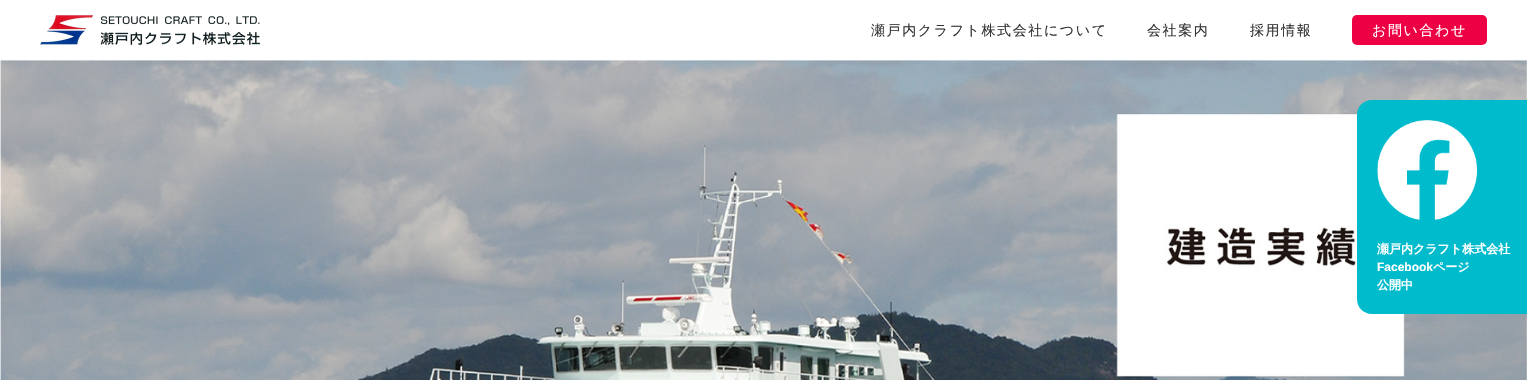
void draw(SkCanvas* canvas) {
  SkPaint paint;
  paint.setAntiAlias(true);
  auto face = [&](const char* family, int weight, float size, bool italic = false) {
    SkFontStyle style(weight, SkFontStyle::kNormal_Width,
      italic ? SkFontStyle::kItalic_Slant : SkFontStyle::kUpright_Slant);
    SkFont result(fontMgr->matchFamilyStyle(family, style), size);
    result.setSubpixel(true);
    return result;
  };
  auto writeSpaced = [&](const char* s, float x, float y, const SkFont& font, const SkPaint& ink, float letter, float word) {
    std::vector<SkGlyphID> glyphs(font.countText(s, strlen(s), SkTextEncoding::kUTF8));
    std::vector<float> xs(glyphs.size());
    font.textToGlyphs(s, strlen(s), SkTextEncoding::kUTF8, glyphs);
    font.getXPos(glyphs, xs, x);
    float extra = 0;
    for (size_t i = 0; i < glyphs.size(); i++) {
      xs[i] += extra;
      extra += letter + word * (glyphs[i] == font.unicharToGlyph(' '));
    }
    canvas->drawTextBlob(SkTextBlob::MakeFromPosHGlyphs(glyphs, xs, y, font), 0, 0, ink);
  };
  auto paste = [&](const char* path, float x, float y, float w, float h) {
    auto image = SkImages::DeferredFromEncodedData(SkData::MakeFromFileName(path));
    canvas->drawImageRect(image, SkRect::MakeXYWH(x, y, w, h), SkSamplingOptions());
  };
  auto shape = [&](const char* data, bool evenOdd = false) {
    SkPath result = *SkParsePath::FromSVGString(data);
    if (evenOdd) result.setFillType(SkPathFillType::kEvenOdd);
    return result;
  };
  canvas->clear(0xffffffff);
  paste("img/1.png", 40, 15, 220, 30);
  paint.setColor(0xffee0044);
  canvas->drawRoundRect(SkRect::MakeXYWH(1352, 15, 135, 30), 5, 5, paint);
  paste("img/3.png", 0, 60, 1527, 320);
  paint.setColor(0xff00bbcc);
  canvas->drawPath(shape("M1372 100H1527V314H1372C1363.5 314 1357 307.5 1357 299V115C1357 106.5 1363.5 100 1372 100Z"), paint);
  paste("img/2.png", 1377, 120, 100, 100);
  auto f0 = face("WenQuanYi Zen Hei", 500, 14);
  paint.setColor(0xff333333);
  {
    const struct { const char* s; float x, y; } items[] = {
      {"瀬戸内クラフト株式会社について", 871, 35},
      {"会社案内", 1147, 35},
      {"採用情報", 1250, 35},
    };
    for (auto [s, x, y] : items) {
      writeSpaced(s, x, y, f0, paint, 1.6f, 0);
    }
  }
  paint.setColor(0xffffffff);
  writeSpaced("お問い合わせ", 1372, 35, f0, paint, 1.6f, 0);
  auto f1 = face("WenQuanYi Zen Hei", 700, 12);
  canvas->drawString("瀬戸内クラフト株式会社", 1377, 253, f1, paint);
  auto f2 = face("Liberation Sans", 700, 12);
  canvas->drawString("Facebook", 1377, 271, f2, paint);
  canvas->drawString("ページ", 1433, 271, f1, paint);
  canvas->drawString("公開中", 1377, 289, f1, paint);
}
